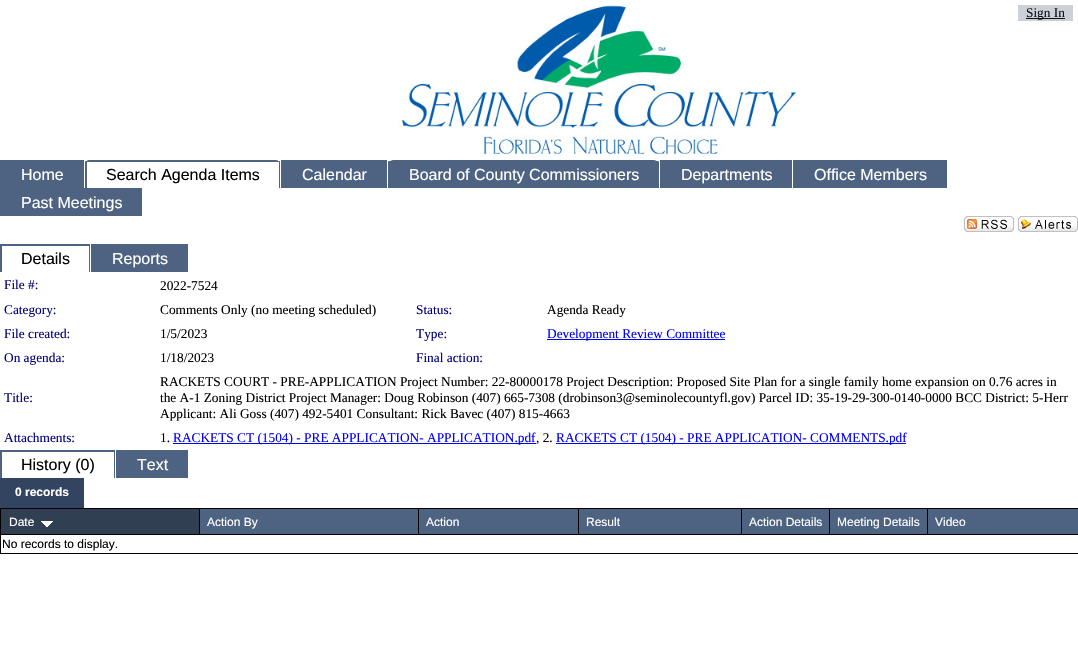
void draw(SkCanvas* canvas) {
  SkPaint paint;
  paint.setAntiAlias(true);
  auto face = [&](const char* family, int weight, float size, bool italic = false) {
    SkFontStyle style(weight, SkFontStyle::kNormal_Width,
      italic ? SkFontStyle::kItalic_Slant : SkFontStyle::kUpright_Slant);
    SkFont result(fontMgr->matchFamilyStyle(family, style), size);
    result.setSubpixel(true);
    return result;
  };
  auto paste = [&](const char* path, float x, float y, float w, float h) {
    auto image = SkImages::DeferredFromEncodedData(SkData::MakeFromFileName(path));
    canvas->drawImageRect(image, SkRect::MakeXYWH(x, y, w, h), SkSamplingOptions());
  };
  canvas->clear(0xffffffff);
  paste("img/1.png", 398, 0, 402, 159);
  paint.setColor(0xff334460);
  canvas->drawRect(SkRect::MakeXYWH(1018, 5, 55, 16), paint);
  paint.setColor(0xbfffffff);
  canvas->drawRoundRect(SkRect::MakeXYWH(1018, -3, 55, 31), 4, 4, paint);
  paint.setColor(0xff0d1118);
  canvas->drawRect(SkRect::MakeXYWH(1026, 18, 39, 1), paint);
  paint.setColor(0xff4e6381);
  canvas->drawRect(SkRect::MakeXYWH(0, 160, 84, 28), paint);
  paste("img/2.png", 85, 160, 195, 28);
  paint.setColor(0xffffffff);
  canvas->drawRect(SkRect::MakeXYWH(87, 162, 192, 26), paint);
  paint.setColor(0xff4e6381);
  canvas->drawRect(SkRect::MakeXYWH(281, 160, 106, 28), paint);
  paste("img/3.png", 388, 160, 271, 28);
  {
    const struct { float x, y, w, h; SkColor color; } items[] = {
      {660, 160, 132, 28, 0xff4e6381},
      {793, 160, 154, 28, 0xff4e6381},
      {0, 188, 142, 28, 0xff4e6381},
    };
    for (auto [x, y, w, h, color] : items) {
      paint.setColor(color);
      canvas->drawRect(SkRect::MakeXYWH(x, y, w, h), paint);
    }
  }
  paste("img/4.png", 964, 216, 50, 16);
  paste("img/5.png", 1018, 216, 60, 16);
  {
    const struct { float x, y, w, h; SkColor color; } items[] = {
      {0, 244, 90, 28, 0xff4e6381},
      {2, 246, 87, 26, 0xffffffff},
      {91, 244, 97, 28, 0xff4e6381},
      {547, 339, 178, 1, 0xff0000ff},
      {173, 443, 363, 1, 0xff0000ff},
      {556, 443, 350, 1, 0xff0000ff},
      {0, 450, 115, 28, 0xff4e6381},
      {2, 452, 112, 26, 0xffffffff},
      {116, 450, 72, 28, 0xff4e6381},
      {0, 478, 84, 30, 0xff334460},
    };
    for (auto [x, y, w, h, color] : items) {
      paint.setColor(color);
      canvas->drawRect(SkRect::MakeXYWH(x, y, w, h), paint);
    }
  }
  paint.setStroke(true);
  paint.setStrokeWidth(1);
  paint.setColor(0xff000000);
  canvas->drawRect(SkRect::MakeXYWH(0.5f, 508.5f, 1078, 45), paint);
  paint.setStroke(false);
  paint.setColor(0xff313f53);
  canvas->drawRect(SkRect::MakeXYWH(1, 509, 198, 25), paint);
  paint.setColor(0xff000000);
  canvas->drawRect(SkRect::MakeXYWH(1, 534, 1077, 1), paint);
  paste("img/6.png", 41, 521, 12, 6);
  {
    const struct { float x, y, w, h; SkColor color; } items[] = {
      {200, 509, 218, 25, 0xff4e6381},
      {199, 509, 1, 26, 0xff000000},
      {419, 509, 159, 25, 0xff4e6381},
      {418, 509, 1, 26, 0xff000000},
      {579, 509, 162, 25, 0xff4e6381},
      {578, 509, 1, 26, 0xff000000},
      {742, 509, 87, 25, 0xff4e6381},
      {741, 509, 1, 26, 0xff000000},
      {830, 509, 97, 25, 0xff4e6381},
      {829, 509, 1, 26, 0xff000000},
      {928, 509, 150, 25, 0xff4e6381},
      {927, 509, 1, 26, 0xff000000},
    };
    for (auto [x, y, w, h, color] : items) {
      paint.setColor(color);
      canvas->drawRect(SkRect::MakeXYWH(x, y, w, h), paint);
    }
  }
  auto f0 = face("Liberation Serif", 400, 13.33f);
  paint.setColor(0xff0d1118);
  canvas->drawString("Sign In", 1026, 17, f0, paint);
  auto f1 = face("Liberation Sans", 400, 16);
  paint.setColor(0xffffffff);
  canvas->drawString("Home", 21, 180, f1, paint);
  paint.setColor(0xff000000);
  canvas->drawString("Search Agenda Items", 106, 180, f1, paint);
  paint.setColor(0xffffffff);
  {
    const struct { const char* s; float x, y; } items[] = {
      {"Calendar", 302, 180},
      {"Board of County Commissioners", 409, 180},
      {"Departments", 681, 180},
      {"Office Members", 814, 180},
      {"Past Meetings", 21, 208},
    };
    for (auto [s, x, y] : items) {
      canvas->drawString(s, x, y, f1, paint);
    }
  }
  paint.setColor(0xff000000);
  canvas->drawString("Details", 21, 264, f1, paint);
  paint.setColor(0xffffffff);
  canvas->drawString("Reports", 112, 264, f1, paint);
  paint.setColor(0xff000080);
  canvas->drawString("File #:", 4, 289, f0, paint);
  paint.setColor(0xff000000);
  canvas->drawString("2022-7524", 160, 290, f0, paint);
  paint.setColor(0xff000080);
  canvas->drawString("Category:", 4, 314, f0, paint);
  paint.setColor(0xff000000);
  canvas->drawString("Comments Only (no meeting scheduled)", 160, 314, f0, paint);
  paint.setColor(0xff000080);
  canvas->drawString("Status:", 416, 314, f0, paint);
  paint.setColor(0xff000000);
  canvas->drawString("Agenda Ready", 547, 314, f0, paint);
  paint.setColor(0xff000080);
  canvas->drawString("File created:", 4, 338, f0, paint);
  paint.setColor(0xff000000);
  canvas->drawString("1/5/2023", 160, 338, f0, paint);
  paint.setColor(0xff000080);
  canvas->drawString("Type:", 416, 338, f0, paint);
  paint.setColor(0xff0000ff);
  canvas->drawString("Development Review Committee", 547, 338, f0, paint);
  paint.setColor(0xff000080);
  canvas->drawString("On agenda:", 4, 362, f0, paint);
  paint.setColor(0xff000000);
  canvas->drawString("1/18/2023", 160, 362, f0, paint);
  paint.setColor(0xff000080);
  canvas->drawString("Final action:", 416, 362, f0, paint);
  canvas->drawString("Title:", 4, 402, f0, paint);
  paint.setColor(0xff000000);
  {
    const struct { const char* s; float x, y; } items[] = {
      {"RACKETS COURT - PRE-APPLICATION Project Number: 22-80000178 Project Description: Proposed Site Plan for a single family home expansion on 0.76 acres in", 160, 386},
      {"the A-1 Zoning District Project Manager: Doug Robinson (407) 665-7308 (drobinson3@seminolecountyfl.gov) Parcel ID: 35-19-29-300-0140-0000 BCC District: 5-Herr", 160, 402},
      {"Applicant: Ali Goss (407) 492-5401 Consultant: Rick Bavec (407) 815-4663", 160, 418},
    };
    for (auto [s, x, y] : items) {
      canvas->drawString(s, x, y, f0, paint);
    }
  }
  paint.setColor(0xff000080);
  canvas->drawString("Attachments:", 4, 442, f0, paint);
  paint.setColor(0xff000000);
  canvas->drawString("1.", 160, 442, f0, paint);
  paint.setColor(0xff0000ff);
  canvas->drawString("RACKETS CT (1504) - PRE APPLICATION- APPLICATION.pdf", 173, 442, f0, paint);
  paint.setColor(0xff000000);
  canvas->drawString(", 2.", 536, 442, f0, paint);
  paint.setColor(0xff0000ff);
  canvas->drawString("RACKETS CT (1504) - PRE APPLICATION- COMMENTS.pdf", 556, 442, f0, paint);
  paint.setColor(0xff000000);
  canvas->drawString("History (0)", 21, 470, f1, paint);
  paint.setColor(0xffffffff);
  canvas->drawString("Text", 137, 470, f1, paint);
  auto f2 = face("Liberation Sans", 700, 12);
  canvas->drawString("0 records", 15, 496, f2, paint);
  auto f3 = face("Liberation Sans", 400, 12);
  {
    const struct { const char* s; float x, y; } items[] = {
      {"Date", 9, 526},
      {"Action By", 207, 526},
      {"Action", 426, 526},
      {"Result", 586, 526},
      {"Action Details", 749, 526},
      {"Meeting Details", 837, 526},
      {"Video", 935, 526},
    };
    for (auto [s, x, y] : items) {
      canvas->drawString(s, x, y, f3, paint);
    }
  }
  paint.setColor(0xff000000);
  canvas->drawString("No records to display.", 2, 548, f3, paint);
}
